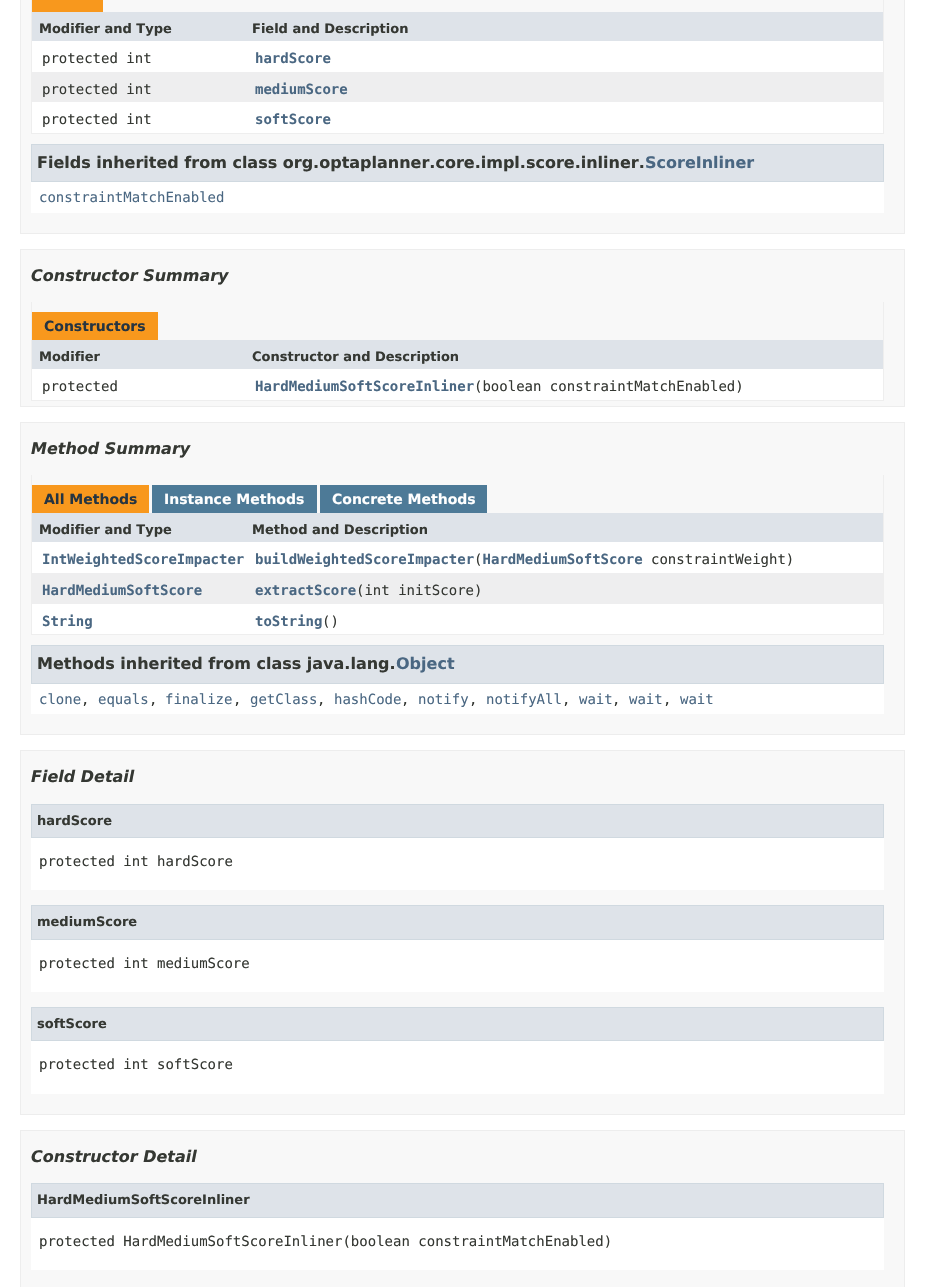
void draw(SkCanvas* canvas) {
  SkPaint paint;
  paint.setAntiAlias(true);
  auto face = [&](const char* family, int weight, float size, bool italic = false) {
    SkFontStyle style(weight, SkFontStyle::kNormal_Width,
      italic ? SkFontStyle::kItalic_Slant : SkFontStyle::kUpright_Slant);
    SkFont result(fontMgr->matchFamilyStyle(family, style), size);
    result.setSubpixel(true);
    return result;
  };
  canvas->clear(0xffffffff);
  paint.setColor(0xfff8f8f8);
  canvas->drawRect(SkRect::MakeXYWH(20.5f, -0.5f, 884, 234), paint);
  paint.setStroke(true);
  paint.setStrokeWidth(1);
  paint.setColor(0xffededed);
  canvas->drawRect(SkRect::MakeXYWH(20.5f, -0.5f, 884, 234), paint);
  paint.setStroke(false);
  {
    const struct { float x, y, w, h; SkColor color; } items[] = {
      {883, 0, 1, 134, 0xffeeeeee},
      {31, 133, 853, 1, 0xffeeeeee},
      {31, 0, 1, 134, 0xffeeeeee},
      {32, 0, 71, 12, 0xfff8981d},
      {32, 12, 851, 29, 0xffdee3e9},
      {32, 41, 851, 31, 0xffffffff},
      {32, 72, 851, 30, 0xffeeeeef},
      {32, 102, 851, 31, 0xffffffff},
      {31, 182, 853, 31, 0xffffffff},
    };
    for (auto [x, y, w, h, color] : items) {
      paint.setColor(color);
      canvas->drawRect(SkRect::MakeXYWH(x, y, w, h), paint);
    }
  }
  paint.setColor(0xffdee3e9);
  canvas->drawRect(SkRect::MakeXYWH(31.5f, 144.5f, 852, 37), paint);
  paint.setStroke(true);
  paint.setColor(0xffd0d9e0);
  canvas->drawRect(SkRect::MakeXYWH(31.5f, 144.5f, 852, 37), paint);
  paint.setStroke(false);
  paint.setColor(0xfff8f8f8);
  canvas->drawRect(SkRect::MakeXYWH(20.5f, 249.5f, 884, 157), paint);
  paint.setStroke(true);
  paint.setColor(0xffededed);
  canvas->drawRect(SkRect::MakeXYWH(20.5f, 249.5f, 884, 157), paint);
  paint.setStroke(false);
  {
    const struct { float x, y, w, h; SkColor color; } items[] = {
      {883, 302, 1, 99, 0xffeeeeee},
      {31, 400, 853, 1, 0xffeeeeee},
      {31, 302, 1, 99, 0xffeeeeee},
      {32, 312, 126, 28, 0xfff8981d},
      {32, 340, 851, 29, 0xffdee3e9},
      {32, 369, 851, 31, 0xffffffff},
    };
    for (auto [x, y, w, h, color] : items) {
      paint.setColor(color);
      canvas->drawRect(SkRect::MakeXYWH(x, y, w, h), paint);
    }
  }
  paint.setColor(0xfff8f8f8);
  canvas->drawRect(SkRect::MakeXYWH(20.5f, 422.5f, 884, 312), paint);
  paint.setStroke(true);
  paint.setColor(0xffededed);
  canvas->drawRect(SkRect::MakeXYWH(20.5f, 422.5f, 884, 312), paint);
  paint.setStroke(false);
  {
    const struct { float x, y, w, h; SkColor color; } items[] = {
      {883, 475, 1, 160, 0xffeeeeee},
      {31, 634, 853, 1, 0xffeeeeee},
      {31, 475, 1, 160, 0xffeeeeee},
      {32, 485, 117, 28, 0xfff8981d},
      {152, 485, 165, 28, 0xff4d7a97},
      {320, 485, 167, 28, 0xff4d7a97},
      {32, 513, 851, 29, 0xffdee3e9},
      {32, 542, 851, 31, 0xffffffff},
      {32, 573, 851, 31, 0xffeeeeef},
      {32, 604, 851, 30, 0xffffffff},
      {31, 684, 853, 30, 0xffffffff},
    };
    for (auto [x, y, w, h, color] : items) {
      paint.setColor(color);
      canvas->drawRect(SkRect::MakeXYWH(x, y, w, h), paint);
    }
  }
  paint.setColor(0xffdee3e9);
  canvas->drawRect(SkRect::MakeXYWH(31.5f, 645.5f, 852, 38), paint);
  paint.setStroke(true);
  paint.setColor(0xffd0d9e0);
  canvas->drawRect(SkRect::MakeXYWH(31.5f, 645.5f, 852, 38), paint);
  paint.setStroke(false);
  paint.setColor(0xfff8f8f8);
  canvas->drawRect(SkRect::MakeXYWH(20.5f, 750.5f, 884, 364), paint);
  paint.setStroke(true);
  paint.setColor(0xffededed);
  canvas->drawRect(SkRect::MakeXYWH(20.5f, 750.5f, 884, 364), paint);
  paint.setStroke(false);
  paint.setColor(0xffffffff);
  canvas->drawRect(SkRect::MakeXYWH(31, 838, 853, 52), paint);
  paint.setColor(0xffdee3e9);
  canvas->drawRect(SkRect::MakeXYWH(31.5f, 804.5f, 852, 33), paint);
  paint.setStroke(true);
  paint.setColor(0xffd0d9e0);
  canvas->drawRect(SkRect::MakeXYWH(31.5f, 804.5f, 852, 33), paint);
  paint.setStroke(false);
  paint.setColor(0xffffffff);
  canvas->drawRect(SkRect::MakeXYWH(31, 940, 853, 52), paint);
  paint.setColor(0xffdee3e9);
  canvas->drawRect(SkRect::MakeXYWH(31.5f, 905.5f, 852, 34), paint);
  paint.setStroke(true);
  paint.setColor(0xffd0d9e0);
  canvas->drawRect(SkRect::MakeXYWH(31.5f, 905.5f, 852, 34), paint);
  paint.setStroke(false);
  paint.setColor(0xffffffff);
  canvas->drawRect(SkRect::MakeXYWH(31, 1041, 853, 53), paint);
  paint.setColor(0xffdee3e9);
  canvas->drawRect(SkRect::MakeXYWH(31.5f, 1007.5f, 852, 33), paint);
  paint.setStroke(true);
  paint.setColor(0xffd0d9e0);
  canvas->drawRect(SkRect::MakeXYWH(31.5f, 1007.5f, 852, 33), paint);
  paint.setStroke(false);
  paint.setColor(0xfff8f8f8);
  canvas->drawRect(SkRect::MakeXYWH(20.5f, 1130.5f, 884, 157), paint);
  paint.setStroke(true);
  paint.setColor(0xffededed);
  canvas->drawRect(SkRect::MakeXYWH(20.5f, 1130.5f, 884, 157), paint);
  paint.setStroke(false);
  paint.setColor(0xffffffff);
  canvas->drawRect(SkRect::MakeXYWH(31, 1218, 853, 52), paint);
  paint.setColor(0xffdee3e9);
  canvas->drawRect(SkRect::MakeXYWH(31.5f, 1183.5f, 852, 34), paint);
  paint.setStroke(true);
  paint.setColor(0xffd0d9e0);
  canvas->drawRect(SkRect::MakeXYWH(31.5f, 1183.5f, 852, 34), paint);
  auto f0 = face("DejaVu Sans", 700, 13);
  paint.setStroke(false);
  paint.setColor(0xff353833);
  canvas->drawString("Modifier and Type", 39, 33, f0, paint);
  canvas->drawString("Field and Description", 252, 33, f0, paint);
  auto f1 = face("DejaVu Sans Mono", 400, 14);
  canvas->drawString("protected int", 42, 63, f1, paint);
  auto f2 = face("DejaVu Sans Mono", 700, 14);
  paint.setColor(0xff4a6782);
  canvas->drawString("hardScore", 255, 63, f2, paint);
  paint.setColor(0xff353833);
  canvas->drawString("protected int", 42, 94, f1, paint);
  paint.setColor(0xff4a6782);
  canvas->drawString("mediumScore", 255, 94, f2, paint);
  paint.setColor(0xff353833);
  canvas->drawString("protected int", 42, 124, f1, paint);
  paint.setColor(0xff4a6782);
  canvas->drawString("softScore", 255, 124, f2, paint);
  auto f3 = face("DejaVu Sans", 700, 16);
  paint.setColor(0xff353833);
  canvas->drawString("Fields inherited from class org.optaplanner.core.impl.score.inliner.", 37, 168, f3, paint);
  paint.setColor(0xff4a6782);
  canvas->drawString("ScoreInliner", 645, 168, f3, paint);
  canvas->drawString("constraintMatchEnabled", 39, 202, f1, paint);
  auto f4 = face("DejaVu Sans", 700, 16, true);
  paint.setColor(0xff353833);
  canvas->drawString("Constructor Summary", 31, 281, f4, paint);
  auto f5 = face("DejaVu Sans", 700, 14);
  paint.setColor(0xff253441);
  canvas->drawString("Constructors", 44, 331, f5, paint);
  paint.setColor(0xff353833);
  canvas->drawString("Modifier", 39, 361, f0, paint);
  canvas->drawString("Constructor and Description", 252, 361, f0, paint);
  canvas->drawString("protected", 42, 391, f1, paint);
  paint.setColor(0xff4a6782);
  canvas->drawString("HardMediumSoftScoreInliner", 255, 391, f2, paint);
  paint.setColor(0xff353833);
  canvas->drawString("(boolean constraintMatchEnabled)", 474, 391, f1, paint);
  canvas->drawString("Method Summary", 31, 454, f4, paint);
  paint.setColor(0xff253441);
  canvas->drawString("All Methods", 44, 504, f5, paint);
  paint.setColor(0xffffffff);
  canvas->drawString("Instance Methods", 164, 504, f5, paint);
  canvas->drawString("Concrete Methods", 332, 504, f5, paint);
  paint.setColor(0xff353833);
  canvas->drawString("Modifier and Type", 39, 534, f0, paint);
  canvas->drawString("Method and Description", 252, 534, f0, paint);
  paint.setColor(0xff4a6782);
  canvas->drawString("IntWeightedScoreImpacter", 42, 564, f2, paint);
  canvas->drawString("buildWeightedScoreImpacter HardMediumSoftScore", 255, 564, f2, paint);
  paint.setColor(0xff353833);
  canvas->drawString("(", 474, 564, f1, paint);
  canvas->drawString("constraintWeight)", 651, 564, f1, paint);
  paint.setColor(0xff4a6782);
  canvas->drawString("HardMediumSoftScore", 42, 595, f2, paint);
  canvas->drawString("extractScore", 255, 595, f2, paint);
  paint.setColor(0xff353833);
  canvas->drawString("(int initScore)", 356, 595, f1, paint);
  paint.setColor(0xff4a6782);
  canvas->drawString("String", 42, 626, f2, paint);
  canvas->drawString("toString", 255, 626, f2, paint);
  paint.setColor(0xff353833);
  canvas->drawString("()", 322, 626, f1, paint);
  canvas->drawString("Methods inherited from class java.lang.", 37, 669, f3, paint);
  paint.setColor(0xff4a6782);
  canvas->drawString("Object", 396, 669, f3, paint);
  canvas->drawString("clone", 39, 704, f1, paint);
  paint.setColor(0xff353833);
  canvas->drawString(",", 81, 704, f1, paint);
  paint.setColor(0xff4a6782);
  canvas->drawString("equals", 98, 704, f1, paint);
  paint.setColor(0xff353833);
  canvas->drawString(",", 149, 704, f1, paint);
  paint.setColor(0xff4a6782);
  canvas->drawString("finalize", 165, 704, f1, paint);
  paint.setColor(0xff353833);
  canvas->drawString(",", 233, 704, f1, paint);
  paint.setColor(0xff4a6782);
  canvas->drawString("getClass", 250, 704, f1, paint);
  paint.setColor(0xff353833);
  canvas->drawString(",", 317, 704, f1, paint);
  paint.setColor(0xff4a6782);
  canvas->drawString("hashCode", 334, 704, f1, paint);
  paint.setColor(0xff353833);
  canvas->drawString(",", 401, 704, f1, paint);
  paint.setColor(0xff4a6782);
  canvas->drawString("notify", 418, 704, f1, paint);
  paint.setColor(0xff353833);
  canvas->drawString(",", 469, 704, f1, paint);
  paint.setColor(0xff4a6782);
  canvas->drawString("notifyAll", 486, 704, f1, paint);
  paint.setColor(0xff353833);
  canvas->drawString(",", 562, 704, f1, paint);
  paint.setColor(0xff4a6782);
  canvas->drawString("wait", 579, 704, f1, paint);
  paint.setColor(0xff353833);
  canvas->drawString(",", 612, 704, f1, paint);
  paint.setColor(0xff4a6782);
  canvas->drawString("wait", 629, 704, f1, paint);
  paint.setColor(0xff353833);
  canvas->drawString(",", 663, 704, f1, paint);
  paint.setColor(0xff4a6782);
  canvas->drawString("wait", 680, 704, f1, paint);
  paint.setColor(0xff353833);
  canvas->drawString("Field Detail", 31, 782, f4, paint);
  canvas->drawString("hardScore", 37, 825, f0, paint);
  canvas->drawString("protected int hardScore", 39, 866, f1, paint);
  canvas->drawString("mediumScore", 37, 926, f0, paint);
  canvas->drawString("protected int mediumScore", 39, 968, f1, paint);
  canvas->drawString("softScore", 37, 1028, f0, paint);
  canvas->drawString("protected int softScore", 39, 1069, f1, paint);
  canvas->drawString("Constructor Detail", 31, 1162, f4, paint);
  canvas->drawString("HardMediumSoftScoreInliner", 37, 1204, f0, paint);
  canvas->drawString("protected HardMediumSoftScoreInliner(boolean constraintMatchEnabled)", 39, 1246, f1, paint);
}
